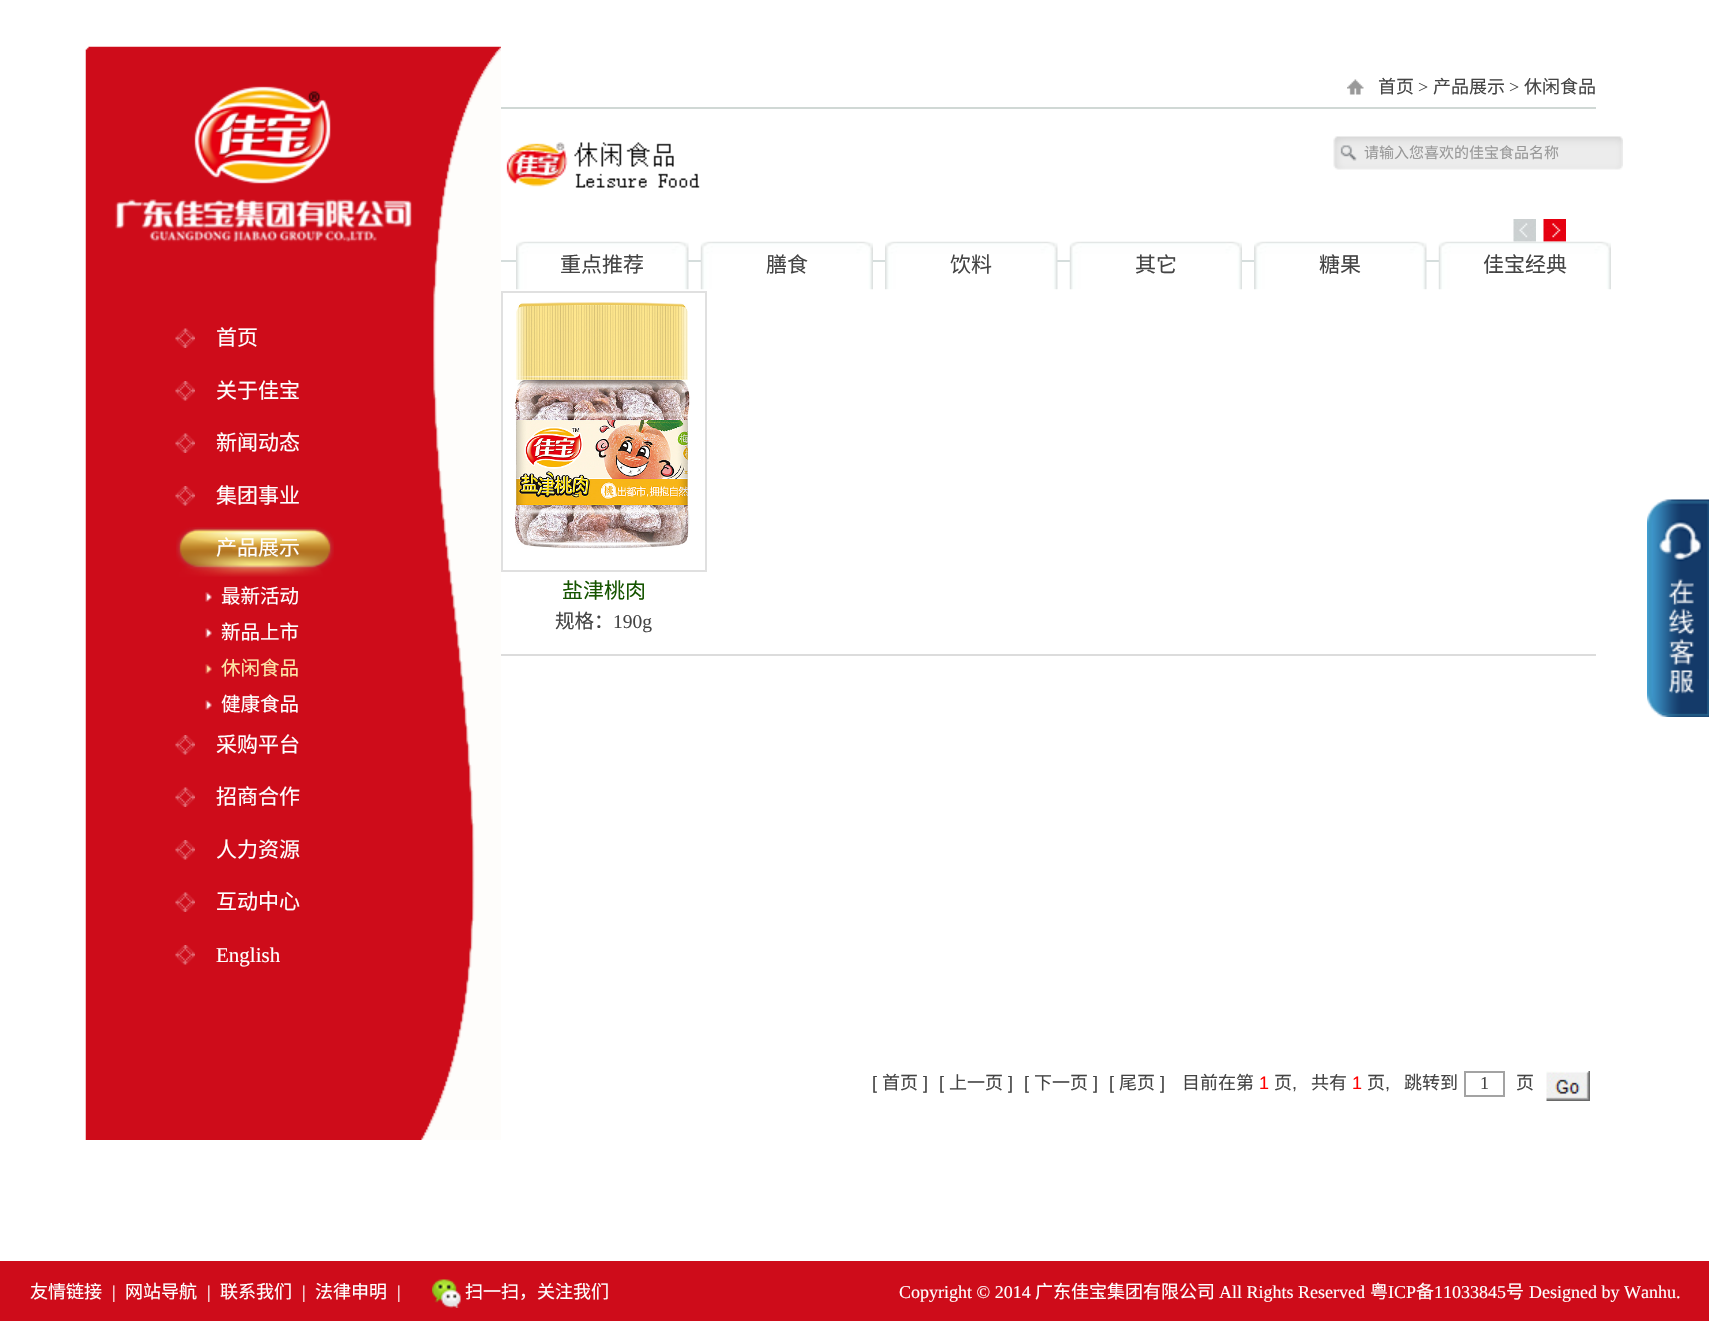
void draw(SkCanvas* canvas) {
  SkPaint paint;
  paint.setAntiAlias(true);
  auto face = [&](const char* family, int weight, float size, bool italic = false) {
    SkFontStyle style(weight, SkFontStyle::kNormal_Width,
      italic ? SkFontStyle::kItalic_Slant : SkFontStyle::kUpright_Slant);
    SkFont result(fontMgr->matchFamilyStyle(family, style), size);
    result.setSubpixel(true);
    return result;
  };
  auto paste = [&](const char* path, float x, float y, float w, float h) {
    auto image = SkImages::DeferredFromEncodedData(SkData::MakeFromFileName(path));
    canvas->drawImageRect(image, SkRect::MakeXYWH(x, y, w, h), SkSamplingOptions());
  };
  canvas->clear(0xffffffff);
  paint.setColor(0xffd0d8d5);
  canvas->drawRect(SkRect::MakeXYWH(501, 107, 1095, 2), paint);
  paste("img/1.png", 1347, 79, 17, 16);
  paste("img/2.png", 506, 142, 194, 46);
  paint.setColor(0xffd5dddc);
  canvas->drawRect(SkRect::MakeXYWH(501, 260, 938, 2), paint);
  paste("img/3.png", 1513, 219, 23, 23);
  paste("img/4.png", 1543, 219, 23, 23);
  paste("img/5.png", 516, 241, 173, 49);
  paste("img/6.png", 700, 241, 173, 49);
  paste("img/5.png", 885, 241, 173, 49);
  paste("img/7.png", 1069, 241, 173, 49);
  paste("img/8.png", 1254, 241, 173, 49);
  paste("img/9.png", 1438, 241, 173, 49);
  paint.setStroke(true);
  paint.setStrokeWidth(2);
  paint.setColor(0xffe0e0e0);
  canvas->drawRect(SkRect::MakeXYWH(502, 292, 204, 279), paint);
  paste("img/10.png", 515, 302, 175, 247);
  paint.setStroke(false);
  paint.setColor(0xffdcdcdc);
  canvas->drawRect(SkRect::MakeXYWH(501, 654, 1095, 2), paint);
  paint.setStroke(true);
  paint.setColor(0xffa3a3a3);
  canvas->drawRect(SkRect::MakeXYWH(1465, 1072, 39, 24), paint);
  paste("img/11.png", 1546, 1071, 44, 30);
  paste("img/12.png", 85, 46, 416, 1094);
  paste("img/13.png", 115, 86, 297, 156);
  paste("img/14.png", 1333, 136, 290, 34);
  paste("img/15.png", 175, 328, 20, 20);
  paste("img/16.png", 175, 381, 20, 20);
  paste("img/15.png", 175, 433, 20, 20);
  paste("img/16.png", 175, 486, 20, 20);
  paste("img/17.png", 176, 527, 158, 50);
  paste("img/18.png", 205, 592, 7, 10);
  paste("img/18.png", 205, 628, 7, 10);
  paste("img/19.png", 205, 664, 7, 10);
  paste("img/18.png", 205, 700, 7, 10);
  paste("img/16.png", 175, 735, 20, 20);
  paste("img/15.png", 175, 787, 20, 20);
  paste("img/16.png", 175, 840, 20, 20);
  paste("img/15.png", 175, 892, 20, 20);
  paste("img/16.png", 175, 945, 20, 20);
  paste("img/20.png", 1647, 499, 62, 218);
  paint.setStroke(false);
  paint.setColor(0xffce0c1a);
  canvas->drawRect(SkRect::MakeXYWH(0, 1261, 1709, 60), paint);
  paste("img/21.png", 432, 1279, 29, 29);
  auto f0 = face("Noto Sans CJK SC", 400, 18);
  paint.setColor(0xff444444);
  canvas->drawString("首页", 1378, 93, f0, paint);
  auto f1 = face("Liberation Serif", 400, 18);
  canvas->drawString(">", 1418, 93, f1, paint);
  canvas->drawString("产品展示", 1433, 93, f0, paint);
  canvas->drawString(">", 1509, 93, f1, paint);
  canvas->drawString("休闲食品", 1524, 93, f0, paint);
  auto f2 = face("Noto Sans CJK SC", 400, 21);
  {
    const struct { const char* s; float x, y; } items[] = {
      {"重点推荐", 560, 272},
      {"膳食", 766, 272},
      {"饮料", 950, 272},
      {"其它", 1135, 272},
      {"糖果", 1319, 272},
      {"佳宝经典", 1483, 272},
    };
    for (auto [s, x, y] : items) {
      canvas->drawString(s, x, y, f2, paint);
    }
  }
  paint.setColor(0xff165501);
  canvas->drawString("盐津桃肉", 562, 598, f2, paint);
  auto f3 = face("Noto Sans CJK SC", 400, 19.5f);
  paint.setColor(0xff444444);
  canvas->drawString("规格：", 555, 628, f3, paint);
  auto f4 = face("Liberation Serif", 400, 19.5f);
  canvas->drawString("190g", 613, 628, f4, paint);
  auto f5 = face("Liberation Sans", 400, 18);
  canvas->drawString("[", 872, 1089, f5, paint);
  canvas->drawString("首页", 882, 1089, f0, paint);
  canvas->drawString("]", 923, 1089, f5, paint);
  canvas->drawString("[", 939, 1089, f5, paint);
  canvas->drawString("上一页", 949, 1089, f0, paint);
  canvas->drawString("]", 1008, 1089, f5, paint);
  canvas->drawString("[", 1024, 1089, f5, paint);
  canvas->drawString("下一页", 1034, 1089, f0, paint);
  canvas->drawString("]", 1093, 1089, f5, paint);
  canvas->drawString("[", 1109, 1089, f5, paint);
  canvas->drawString("尾页", 1119, 1089, f0, paint);
  canvas->drawString("]", 1160, 1089, f5, paint);
  canvas->drawString("目前在第", 1182, 1089, f0, paint);
  paint.setColor(0xffff0000);
  canvas->drawString("1", 1259, 1089, f5, paint);
  paint.setColor(0xff444444);
  canvas->drawString("页", 1274, 1089, f0, paint);
  canvas->drawString(",", 1292, 1089, f5, paint);
  canvas->drawString("共有", 1311, 1089, f0, paint);
  paint.setColor(0xffff0000);
  canvas->drawString("1", 1352, 1089, f5, paint);
  paint.setColor(0xff444444);
  canvas->drawString("页", 1367, 1089, f0, paint);
  canvas->drawString(",", 1385, 1089, f5, paint);
  canvas->drawString("跳转到", 1404, 1089, f0, paint);
  canvas->drawString("1", 1480, 1089, f1, paint);
  canvas->drawString("页", 1516, 1089, f0, paint);
  auto f6 = face("Noto Sans CJK SC", 400, 15);
  paint.setColor(0xff999999);
  canvas->drawString("请输入您喜欢的佳宝食品名称", 1364, 158, f6, paint);
  paint.setColor(0xffffffff);
  {
    const struct { const char* s; float x, y; } items[] = {
      {"首页", 216, 345},
      {"关于佳宝", 216, 398},
      {"新闻动态", 216, 450},
      {"集团事业", 216, 503},
      {"产品展示", 216, 555},
    };
    for (auto [s, x, y] : items) {
      canvas->drawString(s, x, y, f2, paint);
    }
  }
  canvas->drawString("最新活动", 221, 603, f3, paint);
  canvas->drawString("新品上市", 221, 639, f3, paint);
  paint.setColor(0xfffde4a6);
  canvas->drawString("休闲食品", 221, 675, f3, paint);
  paint.setColor(0xffffffff);
  canvas->drawString("健康食品", 221, 711, f3, paint);
  {
    const struct { const char* s; float x, y; } items[] = {
      {"采购平台", 216, 752},
      {"招商合作", 216, 804},
      {"人力资源", 216, 857},
      {"互动中心", 216, 909},
    };
    for (auto [s, x, y] : items) {
      canvas->drawString(s, x, y, f2, paint);
    }
  }
  auto f7 = face("Liberation Serif", 400, 21);
  canvas->drawString("English", 216, 962, f7, paint);
  canvas->drawString("友情链接", 30, 1298, f0, paint);
  auto f8 = face("Liberation Serif", 400, 18, true);
  canvas->drawString("|", 111, 1298, f8, paint);
  canvas->drawString("网站导航", 125, 1298, f0, paint);
  canvas->drawString("|", 206, 1298, f8, paint);
  canvas->drawString("联系我们", 220, 1298, f0, paint);
  canvas->drawString("|", 301, 1298, f8, paint);
  canvas->drawString("法律申明", 315, 1298, f0, paint);
  canvas->drawString("|", 396, 1298, f8, paint);
  canvas->drawString("扫一扫，关注我们", 465, 1298, f0, paint);
  canvas->drawString("Copyright © 2014", 899, 1298, f1, paint);
  canvas->drawString("广东佳宝集团有限公司", 1035, 1298, f0, paint);
  canvas->drawString("All Rights Reserved", 1219, 1298, f1, paint);
  canvas->drawString("粤", 1370, 1298, f0, paint);
  canvas->drawString("ICP", 1388, 1298, f1, paint);
  canvas->drawString("备", 1416, 1298, f0, paint);
  canvas->drawString("11033845", 1434, 1298, f1, paint);
  canvas->drawString("号", 1506, 1298, f0, paint);
  canvas->drawString("Designed by Wanhu.", 1529, 1298, f1, paint);
}
